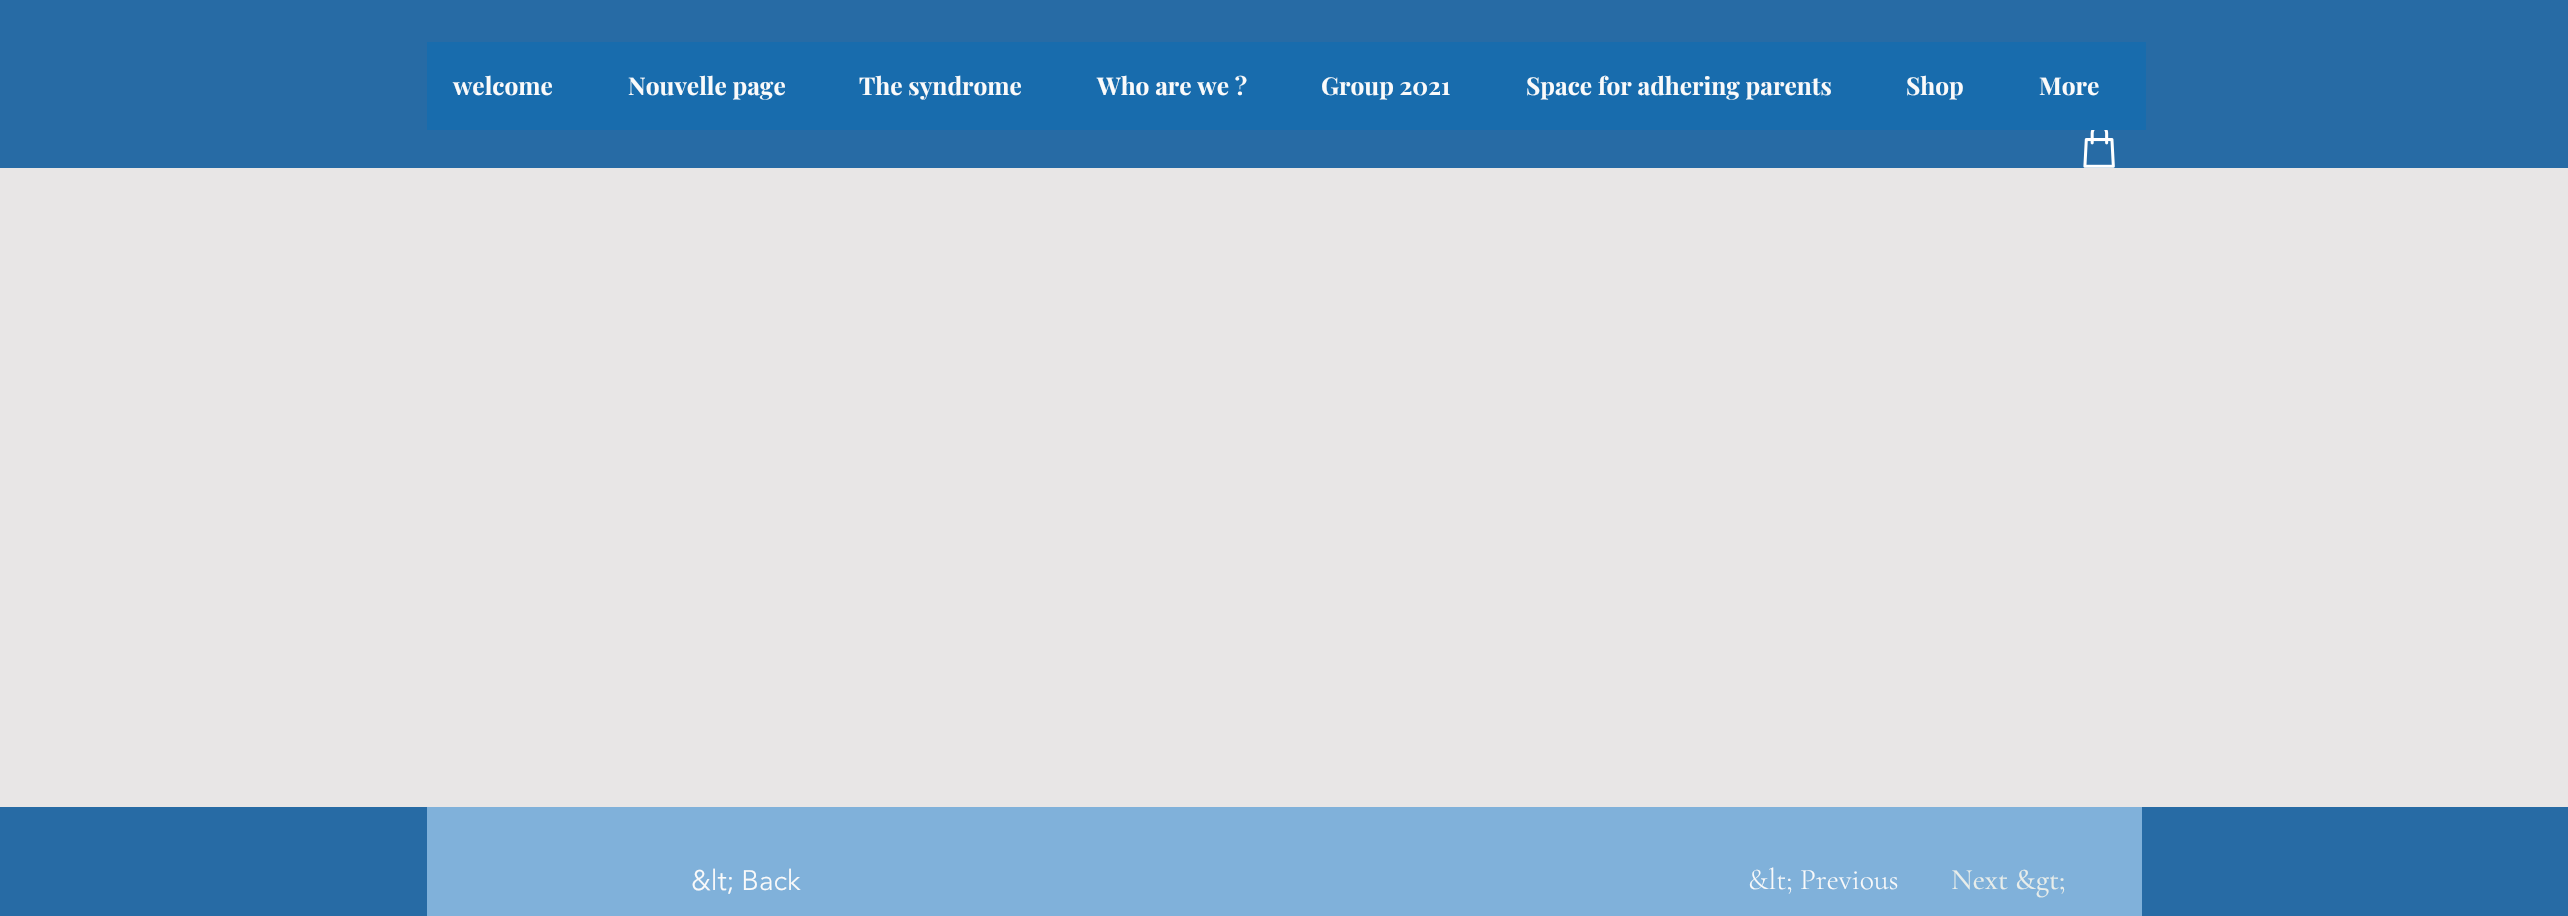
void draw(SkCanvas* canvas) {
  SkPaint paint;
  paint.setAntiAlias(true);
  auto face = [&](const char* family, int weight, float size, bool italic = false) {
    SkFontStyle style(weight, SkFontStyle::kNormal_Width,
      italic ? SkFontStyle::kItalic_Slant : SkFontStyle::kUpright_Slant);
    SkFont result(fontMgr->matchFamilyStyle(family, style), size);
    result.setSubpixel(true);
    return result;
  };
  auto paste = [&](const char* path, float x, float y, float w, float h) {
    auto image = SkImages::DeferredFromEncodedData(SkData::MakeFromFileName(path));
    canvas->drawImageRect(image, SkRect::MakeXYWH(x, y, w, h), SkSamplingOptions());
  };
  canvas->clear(0xff276ba5);
  paint.setColor(0xff186cad);
  canvas->drawRect(SkRect::MakeXYWH(427, 42, 1719, 88), paint);
  paste("img/1.png", 2083, 130, 32, 38);
  paint.setColor(0xffe8e6e6);
  canvas->drawRect(SkRect::MakeXYWH(0, 168, 2568, 639), paint);
  paint.setColor(0xff80b1da);
  canvas->drawRect(SkRect::MakeXYWH(427, 807, 1715, 109), paint);
  auto f0 = face("Playfair Display", 700, 24.5f);
  paint.setColor(0xfffafafa);
  {
    const struct { const char* s; float x, y; } items[] = {
      {"welcome", 453, 95},
      {"Nouvelle page", 628, 95},
      {"The syndrome", 859, 95},
      {"Who are we ?", 1097, 95},
      {"Group 2021", 1321, 95},
      {"Space for adhering parents", 1526, 95},
      {"Shop", 1906, 95},
      {"More", 2039, 95},
    };
    for (auto [s, x, y] : items) {
      canvas->drawString(s, x, y, f0, paint);
    }
  }
  auto f1 = face("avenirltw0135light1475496", 300, 28);
  canvas->drawString("&lt; Back", 691, 890, f1, paint);
  auto f2 = face("Cormorant Garamond", 300, 29.75f);
  canvas->drawString("&lt; Previous", 1748, 889, f2, paint);
  auto f3 = face("Cormorant Garamond", 500, 29.75f);
  paint.setColor(0xffe8edea);
  canvas->drawString("Next &gt;", 1951, 889, f3, paint);
}
